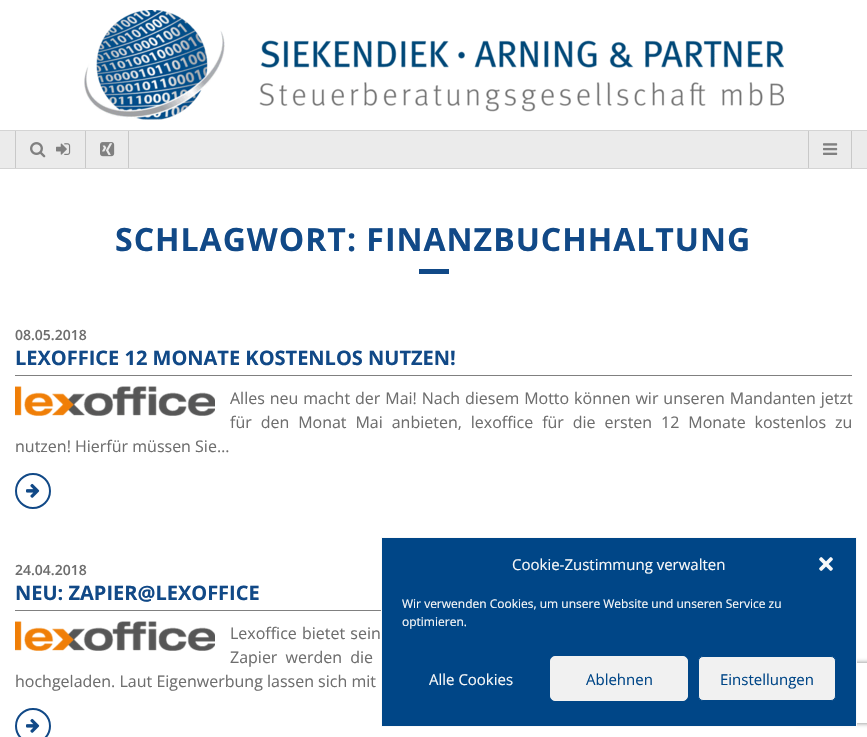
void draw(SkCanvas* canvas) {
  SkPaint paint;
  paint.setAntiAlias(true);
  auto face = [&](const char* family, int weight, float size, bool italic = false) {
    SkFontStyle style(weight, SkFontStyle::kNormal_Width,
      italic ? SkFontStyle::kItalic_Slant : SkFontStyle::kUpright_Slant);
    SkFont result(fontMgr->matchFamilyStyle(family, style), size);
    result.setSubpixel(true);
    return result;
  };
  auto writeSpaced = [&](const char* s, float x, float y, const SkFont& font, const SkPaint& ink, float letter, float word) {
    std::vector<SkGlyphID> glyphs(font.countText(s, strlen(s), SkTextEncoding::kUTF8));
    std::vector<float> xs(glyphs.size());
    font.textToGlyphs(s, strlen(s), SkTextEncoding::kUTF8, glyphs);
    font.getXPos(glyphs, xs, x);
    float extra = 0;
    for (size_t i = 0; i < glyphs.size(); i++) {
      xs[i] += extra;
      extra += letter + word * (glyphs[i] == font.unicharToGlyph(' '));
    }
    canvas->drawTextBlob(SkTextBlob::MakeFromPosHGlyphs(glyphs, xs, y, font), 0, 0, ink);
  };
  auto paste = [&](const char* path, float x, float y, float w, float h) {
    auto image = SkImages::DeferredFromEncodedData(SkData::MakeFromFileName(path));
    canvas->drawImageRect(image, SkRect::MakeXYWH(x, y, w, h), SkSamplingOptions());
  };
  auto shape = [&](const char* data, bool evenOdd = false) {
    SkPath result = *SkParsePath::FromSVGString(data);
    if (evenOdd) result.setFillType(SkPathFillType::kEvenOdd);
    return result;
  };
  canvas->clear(0xffffffff);
  paste("img/1.png", 84, 10, 700, 110);
  {
    const struct { float x, y, w, h; SkColor color; } items[] = {
      {0, 131, 867, 37, 0xffebebeb},
      {0, 130, 867, 1, 0xffd4d4d4},
      {0, 168, 867, 1, 0xffd4d4d4},
      {85, 131, 1, 37, 0xffc8c8c8},
      {15, 131, 1, 37, 0xffc8c8c8},
    };
    for (auto [x, y, w, h, color] : items) {
      paint.setColor(color);
      canvas->drawRect(SkRect::MakeXYWH(x, y, w, h), paint);
    }
  }
  paste("img/2.png", 30, 142, 16, 16);
  paste("img/3.png", 56, 143, 15, 12);
  canvas->drawRect(SkRect::MakeXYWH(128, 131, 1, 37), paint);
  paste("img/4.png", 100, 142, 15, 15);
  canvas->drawRect(SkRect::MakeXYWH(851, 131, 1, 37), paint);
  canvas->drawRect(SkRect::MakeXYWH(808, 131, 1, 37), paint);
  paste("img/5.png", 823, 143, 15, 12);
  paint.setColor(0xff114987);
  canvas->drawRect(SkRect::MakeXYWH(419, 269, 30, 5), paint);
  paint.setColor(0xff808080);
  canvas->drawRect(SkRect::MakeXYWH(15, 375, 837, 1), paint);
  paste("img/6.png", 15, 386, 200, 30);
  paint.setStroke(true);
  paint.setStrokeWidth(2);
  paint.setColor(0xff114987);
  canvas->drawCircle(33, 491, 17, paint);
  paste("img/7.png", 26, 483, 14, 15);
  paint.setStroke(false);
  paint.setColor(0xff808080);
  canvas->drawRect(SkRect::MakeXYWH(15, 610, 366, 1), paint);
  paste("img/6.png", 15, 621, 200, 30);
  paint.setStroke(true);
  paint.setColor(0xff114987);
  canvas->drawCircle(33, 726, 17, paint);
  paste("img/7.png", 26, 718, 14, 15);
  canvas->save();
  canvas->clipPath(shape("M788 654H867V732H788ZM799 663H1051C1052 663 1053 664 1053 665V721C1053 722 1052 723 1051 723H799C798 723 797 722 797 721V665C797 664 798 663 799 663Z", true), true);
  paint.setStroke(false);
  paint.setColor(0xff808080);
  paint.setMaskFilter(SkMaskFilter::MakeBlur(kNormal_SkBlurStyle, 2.5f));
  canvas->drawRoundRect(SkRect::MakeXYWH(797, 663, 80, 60), 2, 2, paint);
  paint.setMaskFilter(nullptr);
  canvas->restore();
  paint.setColor(0xff004687);
  canvas->drawRect(SkRect::MakeXYWH(381.5f, 537.5f, 475, 189), paint);
  paint.setStroke(true);
  paint.setStrokeWidth(1);
  paint.setColor(0xfff9f9f9);
  canvas->drawRect(SkRect::MakeXYWH(381.5f, 537.5f, 475, 189), paint);
  paste("img/8.png", 819, 557, 14, 14);
  paint.setStroke(false);
  paint.setColor(0xfff1f1f1);
  canvas->drawRoundRect(SkRect::MakeXYWH(550.5f, 656.5f, 137, 44), 4.5f, 4.5f, paint);
  paint.setStroke(true);
  canvas->drawRoundRect(SkRect::MakeXYWH(550.5f, 656.5f, 137, 44), 4.5f, 4.5f, paint);
  paint.setStroke(false);
  canvas->drawRoundRect(SkRect::MakeXYWH(698.5f, 656.5f, 137, 44), 4.5f, 4.5f, paint);
  paint.setStroke(true);
  paint.setColor(0xff004687);
  canvas->drawRoundRect(SkRect::MakeXYWH(698.5f, 656.5f, 137, 44), 4.5f, 4.5f, paint);
  auto f0 = face("Open Sans", 700, 32);
  paint.setStroke(false);
  paint.setColor(0xff114987);
  writeSpaced("SCHLAGWORT: FINANZBUCHHALTUNG", 115, 251, f0, paint, 1, 0);
  auto f1 = face("Open Sans", 600, 14);
  paint.setColor(0xff6e6e6e);
  canvas->drawString("08.05.2018", 15, 340, f1, paint);
  auto f2 = face("Open Sans", 700, 20);
  paint.setColor(0xff114987);
  canvas->drawString("LEXOFFICE 12 MONATE KOSTENLOS NUTZEN!", 15, 365, f2, paint);
  auto f3 = face("Open Sans", 400, 16);
  paint.setColor(0xff6e6e6e);
  writeSpaced("Alles neu macht der Mai! Nach diesem Motto können wir unseren Mandanten jetzt", 230, 404, f3, paint, 0, 0.75f);
  writeSpaced("für den Monat Mai anbieten, lexoffice für die ersten 12 Monate kostenlos zu", 230, 428, f3, paint, 0, 4.75f);
  canvas->drawString("nutzen! Hierfür müssen Sie…", 15, 452, f3, paint);
  canvas->drawString("24.04.2018", 15, 575, f1, paint);
  paint.setColor(0xff114987);
  canvas->drawString("NEU: ZAPIER@LEXOFFICE", 15, 600, f2, paint);
  paint.setColor(0xff6e6e6e);
  writeSpaced("Lexoffice bietet sein", 230, 639, f3, paint, 0, 1);
  writeSpaced("Zapier werden die", 230, 663, f3, paint, 0, 4);
  canvas->drawString("hochgeladen. Laut Eigenwerbung lassen sich mit", 15, 687, f3, paint);
  auto f4 = face("Open Sans", 400, 15);
  paint.setColor(0xfff9f9f9);
  canvas->drawString("Cookie-Zustimmung verwalten", 512, 570, f4, paint);
  auto f5 = face("Open Sans", 400, 12);
  canvas->drawString("Wir verwenden Cookies, um unsere Website und unseren Service zu", 402, 608, f5, paint);
  canvas->drawString("optimieren.", 402, 626, f5, paint);
  canvas->drawString("Alle Cookies", 429, 685, f4, paint);
  paint.setColor(0xff004687);
  canvas->drawString("Ablehnen", 586, 685, f4, paint);
  canvas->drawString("Einstellungen", 720, 685, f4, paint);
}
